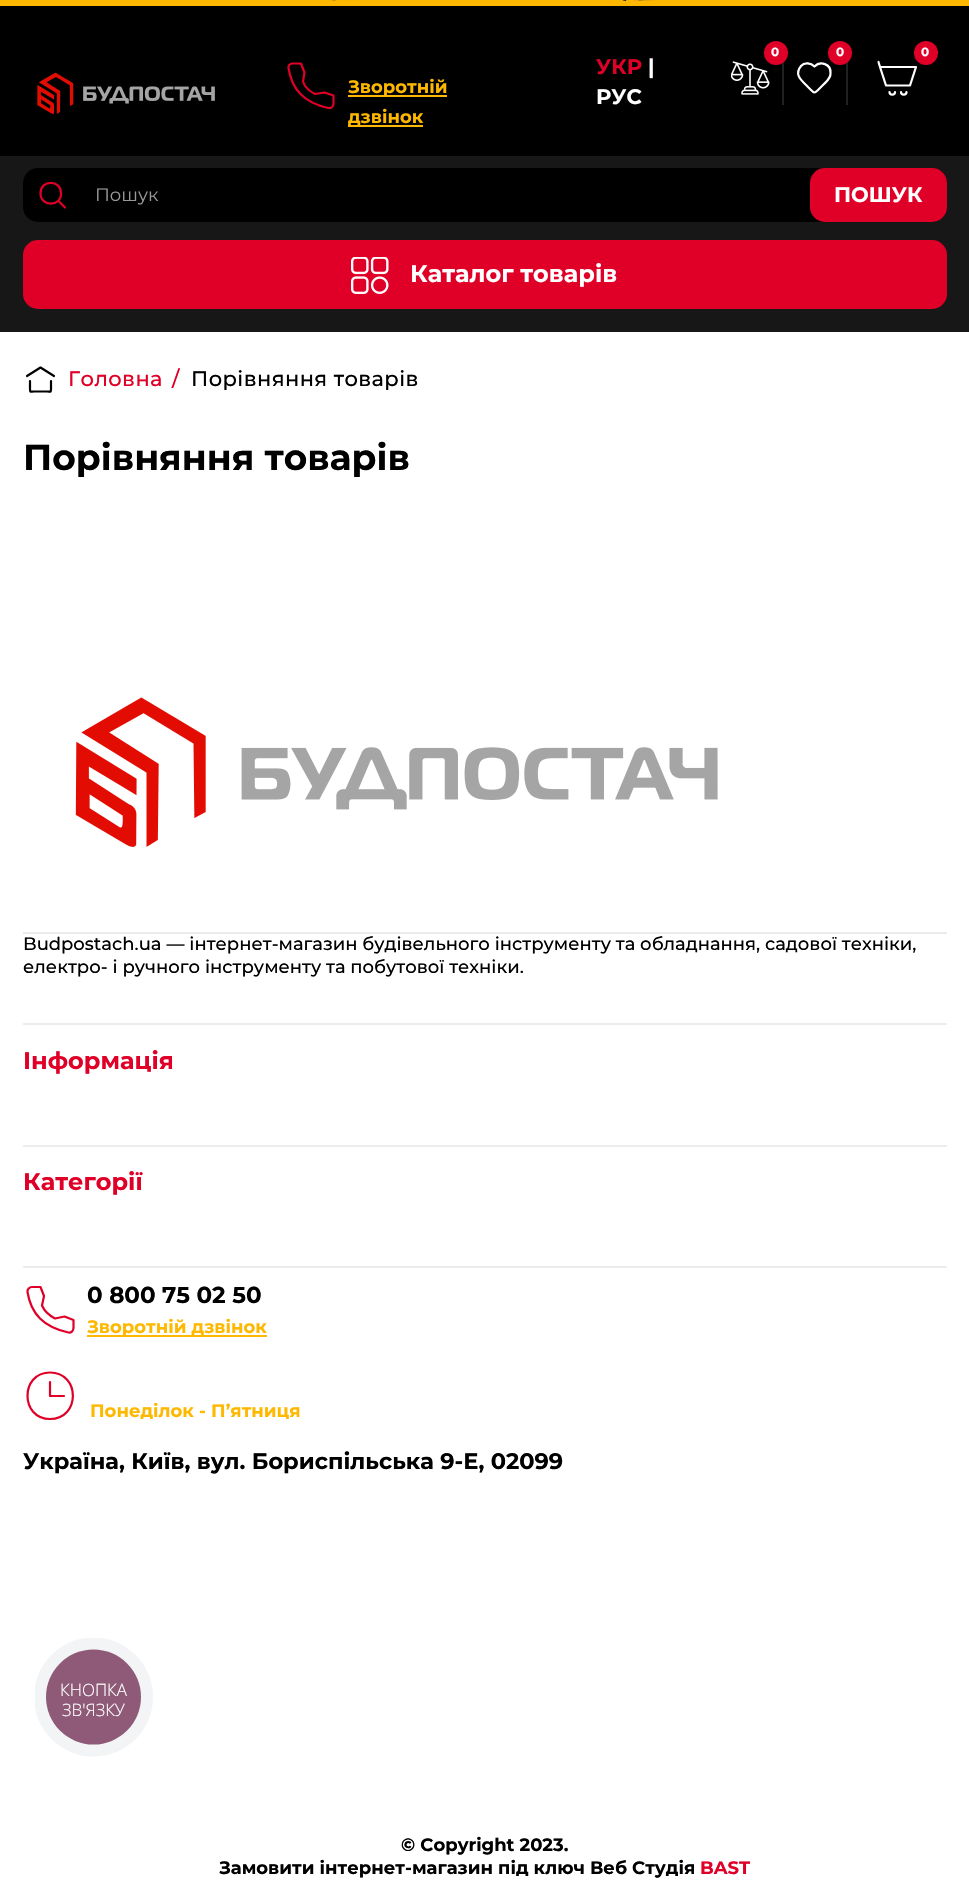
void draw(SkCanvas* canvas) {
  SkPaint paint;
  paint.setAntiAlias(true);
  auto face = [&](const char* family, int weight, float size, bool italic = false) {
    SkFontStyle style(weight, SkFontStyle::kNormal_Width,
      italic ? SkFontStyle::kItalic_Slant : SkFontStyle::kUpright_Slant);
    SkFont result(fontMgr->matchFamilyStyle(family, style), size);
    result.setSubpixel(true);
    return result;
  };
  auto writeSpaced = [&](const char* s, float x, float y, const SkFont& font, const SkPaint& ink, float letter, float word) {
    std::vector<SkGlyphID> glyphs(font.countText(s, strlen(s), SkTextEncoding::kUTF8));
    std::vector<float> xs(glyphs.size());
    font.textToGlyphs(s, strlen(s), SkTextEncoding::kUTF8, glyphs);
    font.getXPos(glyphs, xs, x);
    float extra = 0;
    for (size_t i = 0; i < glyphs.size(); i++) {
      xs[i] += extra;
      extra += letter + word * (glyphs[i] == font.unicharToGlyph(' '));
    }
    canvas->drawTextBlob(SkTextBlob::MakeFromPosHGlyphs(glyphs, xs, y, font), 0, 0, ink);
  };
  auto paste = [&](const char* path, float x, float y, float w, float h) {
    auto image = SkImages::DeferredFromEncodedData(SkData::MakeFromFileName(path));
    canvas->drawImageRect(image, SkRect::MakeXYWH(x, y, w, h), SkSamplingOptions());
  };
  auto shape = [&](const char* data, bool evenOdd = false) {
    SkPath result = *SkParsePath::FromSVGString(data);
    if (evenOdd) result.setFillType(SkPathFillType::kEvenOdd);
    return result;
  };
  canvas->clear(0xffffffff);
  paint.setColor(0xffffb800);
  canvas->drawRect(SkRect::MakeXYWH(0, 0, 969, 6), paint);
  paste("img/1.png", 327, 0, 31, 1);
  paste("img/2.png", 622, 0, 33, 1);
  paint.setColor(0xff000000);
  canvas->drawRect(SkRect::MakeXYWH(0, 6, 969, 150), paint);
  paste("img/3.png", 37, 72, 178, 42);
  paint.setStroke(true);
  paint.setStrokeWidth(2.2f);
  paint.setStrokeCap(SkPaint::kRound_Cap);
  paint.setStrokeJoin(SkPaint::kRound_Join);
  paint.setColor(0xffe00027);
  canvas->drawPath(shape("M324.5 92.5L315 94C309 91 305 87.5 303 81.5L304.5 72.5L301 63.5H292.5C290 63.5 288 65.5 288.5 68C289.5 74.5 292.5 86 300.5 94C309 103 321.5 106.5 328.5 108C331 108.5 333.5 106.5 333.5 104V95.5Z"), paint);
  paint.setStroke(false);
  {
    const struct { float x, y, w, h; SkColor color; } items[] = {
      {348, 95, 99, 2, 0xffffb800},
      {348, 125, 75, 2, 0xffffb800},
      {782, 59, 2, 46, 0xff212121},
    };
    for (auto [x, y, w, h, color] : items) {
      paint.setColor(color);
      canvas->drawRect(SkRect::MakeXYWH(x, y, w, h), paint);
    }
  }
  paste("img/4.png", 731, 61, 39, 34);
  paint.setColor(0xffe00027);
  canvas->drawCircle(776, 53, 12, paint);
  paint.setColor(0xff212121);
  canvas->drawRect(SkRect::MakeXYWH(846, 59, 2, 46), paint);
  paint.setStroke(true);
  paint.setStrokeCap(SkPaint::kButt_Cap);
  paint.setColor(0xffffffff);
  canvas->drawPath(shape("M830.5 73C831 78 827 81 823.5 84.5L817.5 90.5C814.5 93.5 814 93 811 90L807 86C801 80 794 74.5 801 66C804.5 62 811 63 814.5 66.5C820.5 60.5 831 64 830.5 73Z"), paint);
  paint.setStroke(false);
  paint.setColor(0xffe00027);
  canvas->drawCircle(840, 53, 12, paint);
  paint.setStroke(true);
  paint.setStrokeCap(SkPaint::kRound_Cap);
  paint.setColor(0xffffffff);
  canvas->drawPath(shape("M880 67H916L910 85.5H886ZM880 67L878.5 62M895 92C895 95.5 889.5 95.5 889.5 92M906.5 92C906.5 95.5 901 95.5 901 92"), paint);
  paint.setStroke(false);
  paint.setColor(0xffe00027);
  canvas->drawCircle(926, 53, 12, paint);
  paint.setColor(0xff171717);
  canvas->drawRect(SkRect::MakeXYWH(0, 156, 969, 176), paint);
  paint.setColor(0xff000000);
  canvas->drawRoundRect(SkRect::MakeXYWH(23, 168, 924, 54), 15, 15, paint);
  paint.setStroke(true);
  paint.setColor(0xffe00027);
  canvas->drawPath(shape("M58.5 201L65 207.5M40.5 193C40.5 207.5 61.5 207 61 193C61 179.5 40.5 179.5 40.5 193Z"), paint);
  paint.setStroke(false);
  canvas->drawRoundRect(SkRect::MakeXYWH(810, 168, 137, 54), 15, 15, paint);
  canvas->drawRoundRect(SkRect::MakeXYWH(23, 240, 924, 69), 15, 15, paint);
  paste("img/5.png", 351, 257, 38, 37);
  paint.setStroke(true);
  paint.setColor(0xff000000);
  canvas->drawPath(shape("M27 376L40.5 367.5L54 376M51 381V389C51 392.5 50.5 391.5 47 391.5H34C30.5 391.5 30 392.5 30 389V381"), paint);
  paste("img/6.png", 75, 697, 643, 150);
  paint.setStroke(false);
  {
    const struct { float x, y, w, h; SkColor color; } items[] = {
      {23, 932, 924, 2, 0xffebebeb},
      {23, 1023, 924, 2, 0xffededed},
      {23, 1145, 924, 2, 0xffededed},
      {23, 1266, 924, 2, 0xffededed},
    };
    for (auto [x, y, w, h, color] : items) {
      paint.setColor(color);
      canvas->drawRect(SkRect::MakeXYWH(x, y, w, h), paint);
    }
  }
  paint.setStroke(true);
  paint.setColor(0xffe00027);
  canvas->drawPath(shape("M64.5 1316.5L55 1318.5C48.5 1315 44.5 1311.5 42 1305.5L44 1296L40.5 1287H32C29.5 1287 27 1289.5 27.5 1292C28.5 1298.5 31.5 1310 40 1318.5C48.5 1327 61.5 1331 68.5 1332.5C71 1333 73.5 1331 73.5 1328V1320Z"), paint);
  paint.setStroke(false);
  paint.setColor(0xffffb800);
  canvas->drawRect(SkRect::MakeXYWH(87, 1335, 180, 2), paint);
  paint.setStroke(true);
  paint.setColor(0xffe00027);
  canvas->drawPath(shape("M50 1382V1396H64M50 1419C80.5 1419 80.5 1372.5 50 1372.5C20 1372.5 20 1419 50 1419Z"), paint);
  canvas->save();
  canvas->clipRect(SkRect::MakeXYWH(35, 1638, 118, 119));
  paint.setStroke(false);
  paint.setColor(0xfff2f4f5);
  canvas->drawCircle(93.5f, 1697, 59.5f, paint);
  canvas->restore();
  paint.setColor(0xff8e5a78);
  canvas->drawCircle(93.5f, 1697, 47.5f, paint);
  auto f0 = face("Montserrat", 700, 18);
  paint.setColor(0xffffb800);
  canvas->drawString("Зворотній", 348, 93, f0, paint);
  canvas->drawString("дзвінок", 348, 123, f0, paint);
  auto f1 = face("Montserrat", 700, 12);
  paint.setColor(0xffffffff);
  {
    const struct { const char* s; float x, y; } items[] = {
      {"0", 771, 56},
      {"0", 836, 56},
      {"0", 921, 56},
    };
    for (auto [s, x, y] : items) {
      canvas->drawString(s, x, y, f1, paint);
    }
  }
  auto f2 = face("Montserrat", 700, 21);
  paint.setColor(0xffe00027);
  canvas->drawString("УКР", 596, 74, f2, paint);
  paint.setColor(0xffffffff);
  canvas->drawString("|", 648, 74, f2, paint);
  canvas->drawString("РУС", 596, 104, f2, paint);
  auto f3 = face("Montserrat", 400, 18);
  paint.setColor(0xff999999);
  canvas->drawString("Пошук", 95, 201, f3, paint);
  paint.setColor(0xffffffff);
  canvas->drawString("ПОШУК", 834, 202, f2, paint);
  auto f4 = face("Montserrat", 700, 24);
  canvas->drawString("Каталог товарів", 410, 282, f4, paint);
  auto f5 = face("Montserrat", 500, 21);
  paint.setColor(0xffe00027);
  writeSpaced("Головна", 68, 386, f5, paint, 0.4f, 0);
  writeSpaced("/", 172, 386, f5, paint, 0.4f, 0);
  paint.setColor(0xff000000);
  writeSpaced("Порівняння товарів", 191, 386, f5, paint, 0.4f, 0);
  auto f6 = face("Montserrat", 700, 36);
  canvas->drawString("Порівняння товарів", 23, 470, f6, paint);
  auto f7 = face("Montserrat", 500, 18);
  canvas->drawString("Budpostach.ua — інтернет-магазин будівельного інструменту та обладнання, садової техніки,", 23, 950, f7, paint);
  canvas->drawString("електро- і ручного інструменту та побутової техніки.", 23, 973, f7, paint);
  paint.setColor(0xffe00027);
  canvas->drawString("Інформація", 23, 1069, f4, paint);
  canvas->drawString("Категорії", 23, 1190, f4, paint);
  auto f8 = face("Montserrat", 700, 23);
  paint.setColor(0xff000000);
  canvas->drawString("0 800 75 02 50", 87, 1303, f8, paint);
  paint.setColor(0xffffb800);
  canvas->drawString("Зворотній дзвінок", 87, 1333, f0, paint);
  canvas->drawString("Понеділок - П’ятниця", 90, 1417, f0, paint);
  auto f9 = face("Montserrat", 700, 22.5f);
  paint.setColor(0xff000000);
  canvas->drawString("Україна, Київ, вул. Бориспільська 9-Е, 02099", 23, 1469, f9, paint);
  canvas->drawString("© Copyright 2023.", 401, 1851, f0, paint);
  canvas->drawString("Замовити інтернет-магазин під ключ Веб Студія", 219, 1874, f0, paint);
  paint.setColor(0xffe00027);
  canvas->drawString("BAST", 700, 1874, f0, paint);
  auto f10 = face("Open Sans", 300, 17);
  paint.setColor(0xffffffff);
  canvas->drawString("КНОПКА", 60, 1696, f10, paint);
  canvas->drawString("ЗВ'ЯЗКУ", 62, 1716, f10, paint);
}
